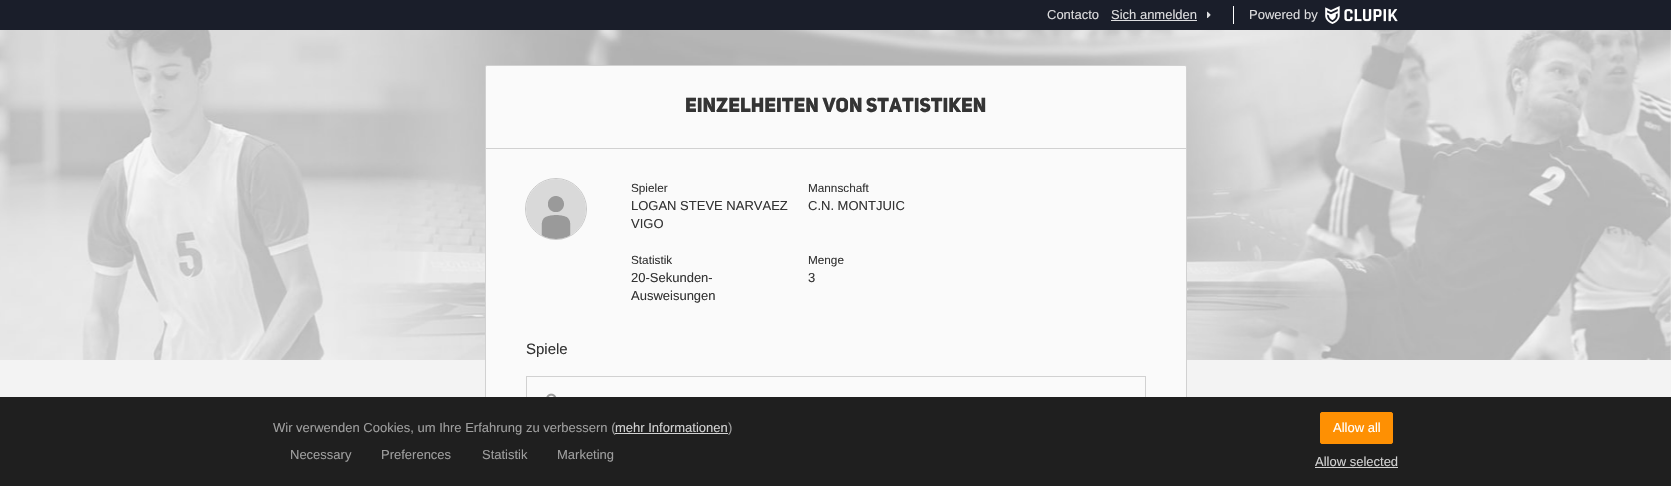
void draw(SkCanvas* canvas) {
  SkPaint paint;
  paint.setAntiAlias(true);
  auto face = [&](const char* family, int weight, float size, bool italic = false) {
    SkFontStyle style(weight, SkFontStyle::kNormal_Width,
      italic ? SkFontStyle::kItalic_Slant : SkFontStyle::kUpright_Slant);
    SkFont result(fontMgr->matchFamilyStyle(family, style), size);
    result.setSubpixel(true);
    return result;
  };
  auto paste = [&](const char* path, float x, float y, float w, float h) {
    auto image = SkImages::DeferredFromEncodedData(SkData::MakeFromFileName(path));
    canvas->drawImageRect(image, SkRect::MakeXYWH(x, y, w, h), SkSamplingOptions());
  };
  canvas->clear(0xfff3f3f3);
  paint.setColor(0xff1a1e2a);
  canvas->drawRect(SkRect::MakeXYWH(0, 0, 1671, 30), paint);
  paint.setColor(0xffdddddf);
  canvas->drawRect(SkRect::MakeXYWH(1111, 20, 86, 1), paint);
  paste("img/1.png", 1207, 11, 4, 7);
  paint.setColor(0xffffffff);
  canvas->drawRect(SkRect::MakeXYWH(1233, 6, 1, 18), paint);
  paste("img/2.png", 1325, 6, 73, 18);
  paste("img/5.png", 0, 30, 1671, 330);
  paint.setColor(0xfffafafa);
  canvas->drawRoundRect(SkRect::MakeXYWH(485.5f, 65.5f, 701, 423), 1.5f, 1.5f, paint);
  paint.setStroke(true);
  paint.setStrokeWidth(1);
  paint.setColor(0xffd1d1d1);
  canvas->drawRoundRect(SkRect::MakeXYWH(485.5f, 65.5f, 701, 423), 1.5f, 1.5f, paint);
  paint.setStroke(false);
  canvas->drawRect(SkRect::MakeXYWH(486, 148, 700, 1), paint);
  paint.setStroke(true);
  paint.setColor(0xffc8c8c8);
  canvas->drawCircle(556, 209, 30.5f, paint);
  paste("img/3.png", 526, 179, 60, 60);
  paint.setStroke(false);
  {
    const struct { float x, y, w, h; SkColor color; } items[] = {
      {526, 376, 620, 1, 0xffd1d1d1},
      {1145, 376, 1, 21, 0xffd1d1d1},
      {526, 376, 1, 21, 0xffd1d1d1},
    };
    for (auto [x, y, w, h, color] : items) {
      paint.setColor(color);
      canvas->drawRect(SkRect::MakeXYWH(x, y, w, h), paint);
    }
  }
  paste("img/4.png", 546, 393, 11, 4);
  paint.setColor(0xff1f1f1f);
  canvas->drawRect(SkRect::MakeXYWH(0, 397, 1671, 89), paint);
  paint.setColor(0xfffe9003);
  canvas->drawRoundRect(SkRect::MakeXYWH(1320.5f, 412.5f, 72, 31), 1.5f, 1.5f, paint);
  paint.setStroke(true);
  canvas->drawRoundRect(SkRect::MakeXYWH(1320.5f, 412.5f, 72, 31), 1.5f, 1.5f, paint);
  paint.setStroke(false);
  paint.setColor(0xffd1d1d1);
  canvas->drawRect(SkRect::MakeXYWH(1315, 467, 83, 1), paint);
  auto f0 = face("Liberation Sans", 400, 13);
  paint.setColor(0xffdddddf);
  {
    const struct { const char* s; float x, y; } items[] = {
      {"Contacto", 1047, 19},
      {"Sich anmelden", 1111, 19},
      {"Powered by", 1249, 19},
    };
    for (auto [s, x, y] : items) {
      canvas->drawString(s, x, y, f0, paint);
    }
  }
  auto f1 = face("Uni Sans", 900, 20);
  paint.setColor(0xff343434);
  canvas->drawString("Einzelheiten von Statistiken", 685, 112, f1, paint);
  auto f2 = face("Liberation Sans", 400, 11.75f);
  canvas->drawString("Spieler", 631, 192, f2, paint);
  canvas->drawString("LOGAN STEVE NARVAEZ", 631, 210, f0, paint);
  canvas->drawString("VIGO", 631, 228, f0, paint);
  canvas->drawString("Mannschaft", 808, 192, f2, paint);
  canvas->drawString("C.N. MONTJUIC", 808, 210, f0, paint);
  canvas->drawString("Statistik", 631, 264, f2, paint);
  canvas->drawString("20-Sekunden-", 631, 282, f0, paint);
  canvas->drawString("Ausweisungen", 631, 300, f0, paint);
  canvas->drawString("Menge", 808, 264, f2, paint);
  canvas->drawString("3", 808, 282, f0, paint);
  auto f3 = face("Liberation Sans", 400, 15);
  canvas->drawString("Spiele", 526, 354, f3, paint);
  paint.setColor(0xff9e9e9e);
  canvas->drawString("Wir verwenden Cookies, um Ihre Erfahrung zu verbessern (", 273, 432, f0, paint);
  paint.setColor(0xffd1d1d1);
  canvas->drawString("mehr Informationen", 615, 432, f0, paint);
  canvas->drawRect(SkRect::MakeXYWH(615, 433, 113, 1), paint);
  paint.setColor(0xff9e9e9e);
  {
    const struct { const char* s; float x, y; } items[] = {
      {")", 728, 432},
      {"Necessary", 290, 459},
      {"Preferences", 381, 459},
      {"Statistik", 482, 459},
      {"Marketing", 557, 459},
    };
    for (auto [s, x, y] : items) {
      canvas->drawString(s, x, y, f0, paint);
    }
  }
  paint.setColor(0xffffffff);
  canvas->drawString("Allow all", 1333, 432, f0, paint);
  paint.setColor(0xffd1d1d1);
  canvas->drawString("Allow selected", 1315, 466, f0, paint);
}
